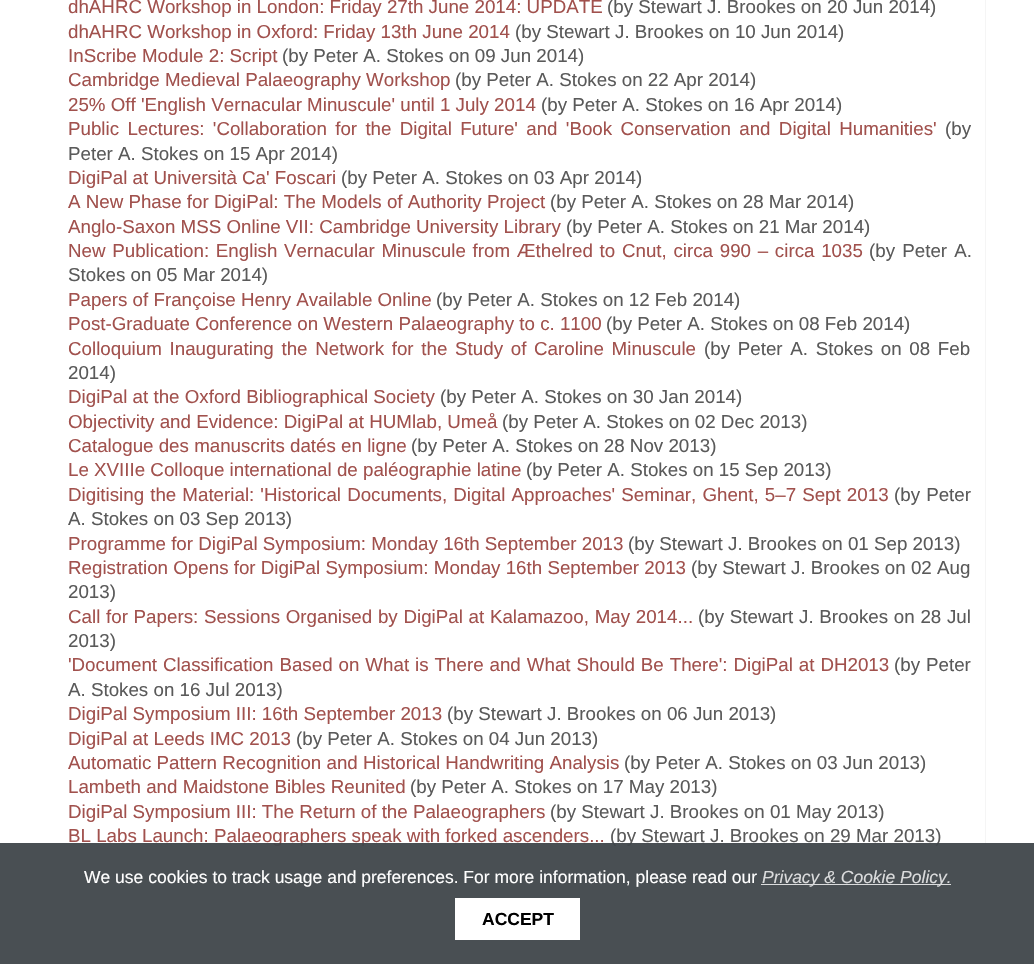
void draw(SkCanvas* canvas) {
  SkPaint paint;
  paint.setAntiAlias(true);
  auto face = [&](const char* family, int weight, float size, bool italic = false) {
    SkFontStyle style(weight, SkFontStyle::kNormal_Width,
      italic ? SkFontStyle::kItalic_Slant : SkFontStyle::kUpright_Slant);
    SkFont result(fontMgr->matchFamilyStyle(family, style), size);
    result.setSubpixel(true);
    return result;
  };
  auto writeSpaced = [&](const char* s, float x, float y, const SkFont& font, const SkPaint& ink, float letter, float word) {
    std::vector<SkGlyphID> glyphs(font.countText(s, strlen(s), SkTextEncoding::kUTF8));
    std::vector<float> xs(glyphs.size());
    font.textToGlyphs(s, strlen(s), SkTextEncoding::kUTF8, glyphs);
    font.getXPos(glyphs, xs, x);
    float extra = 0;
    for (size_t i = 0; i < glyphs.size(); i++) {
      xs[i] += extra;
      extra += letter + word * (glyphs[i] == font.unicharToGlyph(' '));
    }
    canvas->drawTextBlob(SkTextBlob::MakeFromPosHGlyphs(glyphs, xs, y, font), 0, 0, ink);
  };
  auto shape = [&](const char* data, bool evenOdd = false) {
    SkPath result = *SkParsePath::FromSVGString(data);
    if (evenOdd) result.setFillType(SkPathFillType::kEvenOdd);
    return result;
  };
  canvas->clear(0xffffffff);
  paint.setColor(0xfff5f5f5);
  canvas->drawPath(shape("M49-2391H980C983-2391 986-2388 986-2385V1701H49ZM49-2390H980C983-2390 985-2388 985-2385V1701H49Z", true), paint);
  auto f0 = face("Liberation Sans", 400, 18.75f);
  paint.setColor(0xffa1514d);
  canvas->drawString("dhAHRC Workshop in London: Friday 27th June 2014: UPDATE", 68, 13, f0, paint);
  paint.setColor(0xff5a5a5a);
  canvas->drawString("(by Stewart J. Brookes on 20 Jun 2014)", 607, 13, f0, paint);
  paint.setColor(0xffa1514d);
  canvas->drawString("dhAHRC Workshop in Oxford: Friday 13th June 2014", 68, 38, f0, paint);
  paint.setColor(0xff5a5a5a);
  canvas->drawString("(by Stewart J. Brookes on 10 Jun 2014)", 515, 38, f0, paint);
  paint.setColor(0xffa1514d);
  canvas->drawString("InScribe Module 2: Script", 68, 62, f0, paint);
  paint.setColor(0xff5a5a5a);
  canvas->drawString("(by Peter A. Stokes on 09 Jun 2014)", 282, 62, f0, paint);
  paint.setColor(0xffa1514d);
  canvas->drawString("Cambridge Medieval Palaeography Workshop", 68, 86, f0, paint);
  paint.setColor(0xff5a5a5a);
  canvas->drawString("(by Peter A. Stokes on 22 Apr 2014)", 455, 86, f0, paint);
  paint.setColor(0xffa1514d);
  canvas->drawString("25% Off 'English Vernacular Minuscule' until 1 July 2014", 68, 111, f0, paint);
  paint.setColor(0xff5a5a5a);
  canvas->drawString("(by Peter A. Stokes on 16 Apr 2014)", 541, 111, f0, paint);
  paint.setColor(0xffa1514d);
  writeSpaced("Public Lectures: 'Collaboration for the Digital Future' and 'Book Conservation and Digital Humanities'", 68, 135, f0, paint, 0, 3.1f);
  paint.setColor(0xff5a5a5a);
  canvas->drawString("(by", 945, 135, f0, paint);
  canvas->drawString("Peter A. Stokes on 15 Apr 2014)", 68, 160, f0, paint);
  paint.setColor(0xffa1514d);
  canvas->drawString("DigiPal at Università Ca' Foscari", 68, 184, f0, paint);
  paint.setColor(0xff5a5a5a);
  canvas->drawString("(by Peter A. Stokes on 03 Apr 2014)", 341, 184, f0, paint);
  paint.setColor(0xffa1514d);
  canvas->drawString("A New Phase for DigiPal: The Models of Authority Project", 68, 208, f0, paint);
  paint.setColor(0xff5a5a5a);
  canvas->drawString("(by Peter A. Stokes on 28 Mar 2014)", 550, 208, f0, paint);
  paint.setColor(0xffa1514d);
  canvas->drawString("Anglo-Saxon MSS Online VII: Cambridge University Library", 68, 233, f0, paint);
  paint.setColor(0xff5a5a5a);
  canvas->drawString("(by Peter A. Stokes on 21 Mar 2014)", 566, 233, f0, paint);
  paint.setColor(0xffa1514d);
  writeSpaced("New Publication: English Vernacular Minuscule from Æthelred to Cnut, circa 990 – circa 1035", 68, 257, f0, paint, 0, 1.5f);
  paint.setColor(0xff5a5a5a);
  writeSpaced("(by Peter A.", 869, 257, f0, paint, 0, 2);
  canvas->drawString("Stokes on 05 Mar 2014)", 68, 281, f0, paint);
  paint.setColor(0xffa1514d);
  canvas->drawString("Papers of Françoise Henry Available Online", 68, 306, f0, paint);
  paint.setColor(0xff5a5a5a);
  canvas->drawString("(by Peter A. Stokes on 12 Feb 2014)", 436, 306, f0, paint);
  paint.setColor(0xffa1514d);
  canvas->drawString("Post-Graduate Conference on Western Palaeography to c. 1100", 68, 330, f0, paint);
  paint.setColor(0xff5a5a5a);
  canvas->drawString("(by Peter A. Stokes on 08 Feb 2014)", 606, 330, f0, paint);
  paint.setColor(0xffa1514d);
  writeSpaced("Colloquium Inaugurating the Network for the Study of Caroline Minuscule", 68, 355, f0, paint, 0, 2.5f);
  paint.setColor(0xff5a5a5a);
  writeSpaced("(by Peter A. Stokes on 08 Feb", 704, 355, f0, paint, 0, 2.5f);
  canvas->drawString("2014)", 68, 379, f0, paint);
  paint.setColor(0xffa1514d);
  canvas->drawString("DigiPal at the Oxford Bibliographical Society", 68, 403, f0, paint);
  paint.setColor(0xff5a5a5a);
  canvas->drawString("(by Peter A. Stokes on 30 Jan 2014)", 440, 403, f0, paint);
  paint.setColor(0xffa1514d);
  canvas->drawString("Objectivity and Evidence: DigiPal at HUMlab, Umeå", 68, 428, f0, paint);
  paint.setColor(0xff5a5a5a);
  canvas->drawString("(by Peter A. Stokes on 02 Dec 2013)", 502, 428, f0, paint);
  paint.setColor(0xffa1514d);
  canvas->drawString("Catalogue des manuscrits datés en ligne", 68, 452, f0, paint);
  paint.setColor(0xff5a5a5a);
  canvas->drawString("(by Peter A. Stokes on 28 Nov 2013)", 411, 452, f0, paint);
  paint.setColor(0xffa1514d);
  canvas->drawString("Le XVIIIe Colloque international de paléographie latine", 68, 476, f0, paint);
  paint.setColor(0xff5a5a5a);
  canvas->drawString("(by Peter A. Stokes on 15 Sep 2013)", 526, 476, f0, paint);
  paint.setColor(0xffa1514d);
  writeSpaced("Digitising the Material: 'Historical Documents, Digital Approaches' Seminar, Ghent, 5–7 Sept 2013", 68, 501, f0, paint, 0, 0.9f);
  paint.setColor(0xff5a5a5a);
  writeSpaced("(by Peter", 894, 501, f0, paint, 0, 0.9f);
  canvas->drawString("A. Stokes on 03 Sep 2013)", 68, 525, f0, paint);
  paint.setColor(0xffa1514d);
  canvas->drawString("Programme for DigiPal Symposium: Monday 16th September 2013", 68, 550, f0, paint);
  paint.setColor(0xff5a5a5a);
  canvas->drawString("(by Stewart J. Brookes on 01 Sep 2013)", 628, 550, f0, paint);
  paint.setColor(0xffa1514d);
  canvas->drawString("Registration Opens for DigiPal Symposium: Monday 16th September 2013", 68, 574, f0, paint);
  paint.setColor(0xff5a5a5a);
  canvas->drawString("(by Stewart J. Brookes on 02 Aug", 691, 574, f0, paint);
  canvas->drawString("2013)", 68, 598, f0, paint);
  paint.setColor(0xffa1514d);
  writeSpaced("Call for Papers: Sessions Organised by DigiPal at Kalamazoo, May 2014...", 68, 623, f0, paint, 0, 0.5f);
  paint.setColor(0xff5a5a5a);
  writeSpaced("(by Stewart J. Brookes on 28 Jul", 698, 623, f0, paint, 0, 0.5f);
  canvas->drawString("2013)", 68, 647, f0, paint);
  paint.setColor(0xffa1514d);
  writeSpaced("'Document Classification Based on What is There and What Should Be There': DigiPal at DH2013", 68, 671, f0, paint, 0, 0.75f);
  paint.setColor(0xff5a5a5a);
  writeSpaced("(by Peter", 894, 671, f0, paint, 0, 0.75f);
  canvas->drawString("A. Stokes on 16 Jul 2013)", 68, 696, f0, paint);
  paint.setColor(0xffa1514d);
  canvas->drawString("DigiPal Symposium III: 16th September 2013", 68, 720, f0, paint);
  paint.setColor(0xff5a5a5a);
  canvas->drawString("(by Stewart J. Brookes on 06 Jun 2013)", 447, 720, f0, paint);
  paint.setColor(0xffa1514d);
  canvas->drawString("DigiPal at Leeds IMC 2013", 68, 745, f0, paint);
  paint.setColor(0xff5a5a5a);
  canvas->drawString("(by Peter A. Stokes on 04 Jun 2013)", 296, 745, f0, paint);
  paint.setColor(0xffa1514d);
  canvas->drawString("Automatic Pattern Recognition and Historical Handwriting Analysis", 68, 769, f0, paint);
  paint.setColor(0xff5a5a5a);
  canvas->drawString("(by Peter A. Stokes on 03 Jun 2013)", 624, 769, f0, paint);
  paint.setColor(0xffa1514d);
  canvas->drawString("Lambeth and Maidstone Bibles Reunited", 68, 793, f0, paint);
  paint.setColor(0xff5a5a5a);
  canvas->drawString("(by Peter A. Stokes on 17 May 2013)", 410, 793, f0, paint);
  paint.setColor(0xffa1514d);
  canvas->drawString("DigiPal Symposium III: The Return of the Palaeographers", 68, 818, f0, paint);
  paint.setColor(0xff5a5a5a);
  canvas->drawString("(by Stewart J. Brookes on 01 May 2013)", 550, 818, f0, paint);
  paint.setColor(0xffa1514d);
  canvas->drawString("BL Labs Launch: Palaeographers speak with forked ascenders...", 68, 842, f0, paint);
  paint.setColor(0xff5a5a5a);
  canvas->drawString("(by Stewart J. Brookes on 29 Mar 2013)", 610, 842, f0, paint);
  paint.setColor(0xf23f464a);
  canvas->drawRect(SkRect::MakeXYWH(0, 843, 1034, 121), paint);
  auto f1 = face("Liberation Sans", 400, 17.5f);
  paint.setColor(0xffffffff);
  canvas->drawString("We use cookies to track usage and preferences. For more information, please read our", 84, 883, f1, paint);
  paint.setColor(0xffdbdcdd);
  canvas->drawRect(SkRect::MakeXYWH(761, 884, 190, 1), paint);
  auto f2 = face("Liberation Sans", 400, 17.5f, true);
  canvas->drawString("Privacy & Cookie Policy.", 762, 883, f2, paint);
  paint.setColor(0xffffffff);
  canvas->drawRect(SkRect::MakeXYWH(455, 898, 125, 42), paint);
  auto f3 = face("Liberation Sans", 700, 17.5f);
  paint.setColor(0xff000000);
  canvas->drawString("ACCEPT", 482, 925, f3, paint);
}
